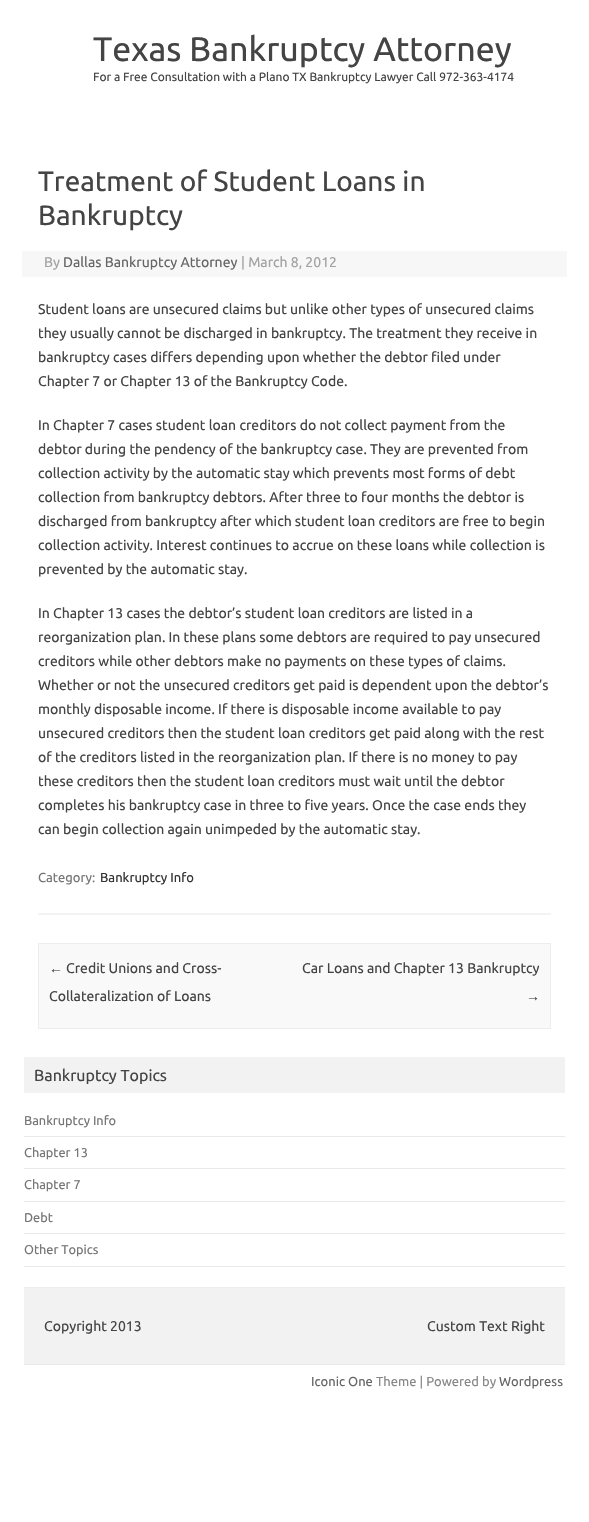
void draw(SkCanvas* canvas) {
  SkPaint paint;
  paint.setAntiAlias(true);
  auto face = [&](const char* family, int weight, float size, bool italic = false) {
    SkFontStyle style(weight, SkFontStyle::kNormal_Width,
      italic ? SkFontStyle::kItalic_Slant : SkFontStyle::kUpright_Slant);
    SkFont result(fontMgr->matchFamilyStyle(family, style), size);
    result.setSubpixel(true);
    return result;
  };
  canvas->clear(0xffffffff);
  paint.setColor(0xfff3f3f3);
  canvas->drawRect(SkRect::MakeXYWH(38, 913, 513, 2), paint);
  paint.setColor(0xfff7f7f7);
  canvas->drawRect(SkRect::MakeXYWH(22, 251, 545, 26), paint);
  paint.setColor(0xfff9f9f9);
  canvas->drawRect(SkRect::MakeXYWH(38.5f, 943.5f, 512, 85), paint);
  paint.setStroke(true);
  paint.setStrokeWidth(1);
  paint.setColor(0xffededed);
  canvas->drawRect(SkRect::MakeXYWH(38.5f, 943.5f, 512, 85), paint);
  paint.setStroke(false);
  {
    const struct { float x, y, w, h; SkColor color; } items[] = {
      {24, 1057, 541, 36, 0xfff2f2f2},
      {24, 1136, 541, 1, 0xffe9e9e9},
      {24, 1168, 541, 1, 0xffe9e9e9},
      {24, 1201, 541, 1, 0xffe9e9e9},
      {24, 1233, 541, 1, 0xffe9e9e9},
      {24, 1266, 541, 1, 0xffe9e9e9},
      {24, 1288, 541, 76, 0xfff2f2f2},
      {24, 1287, 541, 1, 0xffededed},
      {24, 1364, 541, 1, 0xffe9e9e9},
    };
    for (auto [x, y, w, h, color] : items) {
      paint.setColor(color);
      canvas->drawRect(SkRect::MakeXYWH(x, y, w, h), paint);
    }
  }
  auto f0 = face("Ubuntu", 400, 34);
  paint.setColor(0xff444444);
  canvas->drawString("Texas Bankruptcy Attorney", 93, 61, f0, paint);
  auto f1 = face("Ubuntu", 400, 12);
  canvas->drawString("For a Free Consultation with a Plano TX Bankruptcy Lawyer Call 972-363-4174", 93, 81, f1, paint);
  auto f2 = face("Ubuntu", 400, 28);
  canvas->drawString("Treatment of Student Loans in", 38, 191, f2, paint);
  canvas->drawString("Bankruptcy", 38, 225, f2, paint);
  auto f3 = face("Ubuntu", 400, 14);
  paint.setColor(0xffa2a2a2);
  canvas->drawString("By", 44, 267, f3, paint);
  paint.setColor(0xff666666);
  canvas->drawString("Dallas Bankruptcy Attorney", 63, 267, f3, paint);
  paint.setColor(0xffa2a2a2);
  canvas->drawString("| March 8, 2012", 241, 267, f3, paint);
  paint.setColor(0xff444444);
  {
    const struct { const char* s; float x, y; } items[] = {
      {"Student loans are unsecured claims but unlike other types of unsecured claims", 38, 314},
      {"they usually cannot be discharged in bankruptcy. The treatment they receive in", 38, 338},
      {"bankruptcy cases differs depending upon whether the debtor filed under", 38, 362},
      {"Chapter 7 or Chapter 13 of the Bankruptcy Code.", 38, 386},
      {"In Chapter 7 cases student loan creditors do not collect payment from the", 38, 430},
      {"debtor during the pendency of the bankruptcy case. They are prevented from", 38, 454},
      {"collection activity by the automatic stay which prevents most forms of debt", 38, 478},
      {"collection from bankruptcy debtors. After three to four months the debtor is", 38, 502},
      {"discharged from bankruptcy after which student loan creditors are free to begin", 38, 526},
      {"collection activity. Interest continues to accrue on these loans while collection is", 38, 550},
      {"prevented by the automatic stay.", 38, 574},
      {"In Chapter 13 cases the debtor’s student loan creditors are listed in a", 38, 618},
      {"reorganization plan. In these plans some debtors are required to pay unsecured", 38, 642},
      {"creditors while other debtors make no payments on these types of claims.", 38, 666},
      {"Whether or not the unsecured creditors get paid is dependent upon the debtor’s", 38, 690},
      {"monthly disposable income. If there is disposable income available to pay", 38, 714},
      {"unsecured creditors then the student loan creditors get paid along with the rest", 38, 738},
      {"of the creditors listed in the reorganization plan. If there is no money to pay", 38, 762},
      {"these creditors then the student loan creditors must wait until the debtor", 38, 786},
      {"completes his bankruptcy case in three to five years. Once the case ends they", 38, 810},
      {"can begin collection again unimpeded by the automatic stay.", 38, 834},
    };
    for (auto [s, x, y] : items) {
      canvas->drawString(s, x, y, f3, paint);
    }
  }
  auto f4 = face("Ubuntu", 400, 13);
  paint.setColor(0xff757575);
  canvas->drawString("Category:", 38, 882, f4, paint);
  paint.setColor(0xff333333);
  canvas->drawString("Bankruptcy Info", 100, 882, f4, paint);
  auto f5 = face("Liberation Sans", 400, 14);
  paint.setColor(0xff444444);
  canvas->drawString("←", 49, 973, f5, paint);
  {
    const struct { const char* s; float x, y; } items[] = {
      {"Credit Unions and Cross-", 66, 973},
      {"Collateralization of Loans", 49, 1001},
      {"Car Loans and Chapter 13 Bankruptcy", 302, 973},
    };
    for (auto [s, x, y] : items) {
      canvas->drawString(s, x, y, f3, paint);
    }
  }
  canvas->drawString("→", 526, 1001, f5, paint);
  auto f6 = face("Ubuntu", 400, 16);
  canvas->drawString("Bankruptcy Topics", 34, 1081, f6, paint);
  auto f7 = face("Ubuntu", 400, 12.75f);
  paint.setColor(0xff757575);
  {
    const struct { const char* s; float x, y; } items[] = {
      {"Bankruptcy Info", 24, 1125},
      {"Chapter 13", 24, 1157},
      {"Chapter 7", 24, 1189},
      {"Debt", 24, 1222},
      {"Other Topics", 24, 1254},
    };
    for (auto [s, x, y] : items) {
      canvas->drawString(s, x, y, f7, paint);
    }
  }
  paint.setColor(0xff444444);
  canvas->drawString("Copyright 2013", 44, 1331, f3, paint);
  canvas->drawString("Custom Text Right", 427, 1331, f3, paint);
  paint.setColor(0xff666666);
  canvas->drawString("Iconic One", 311, 1386, f4, paint);
  paint.setColor(0xff888888);
  canvas->drawString("Theme | Powered by", 376, 1386, f4, paint);
  paint.setColor(0xff666666);
  canvas->drawString("Wordpress", 499, 1386, f4, paint);
}
